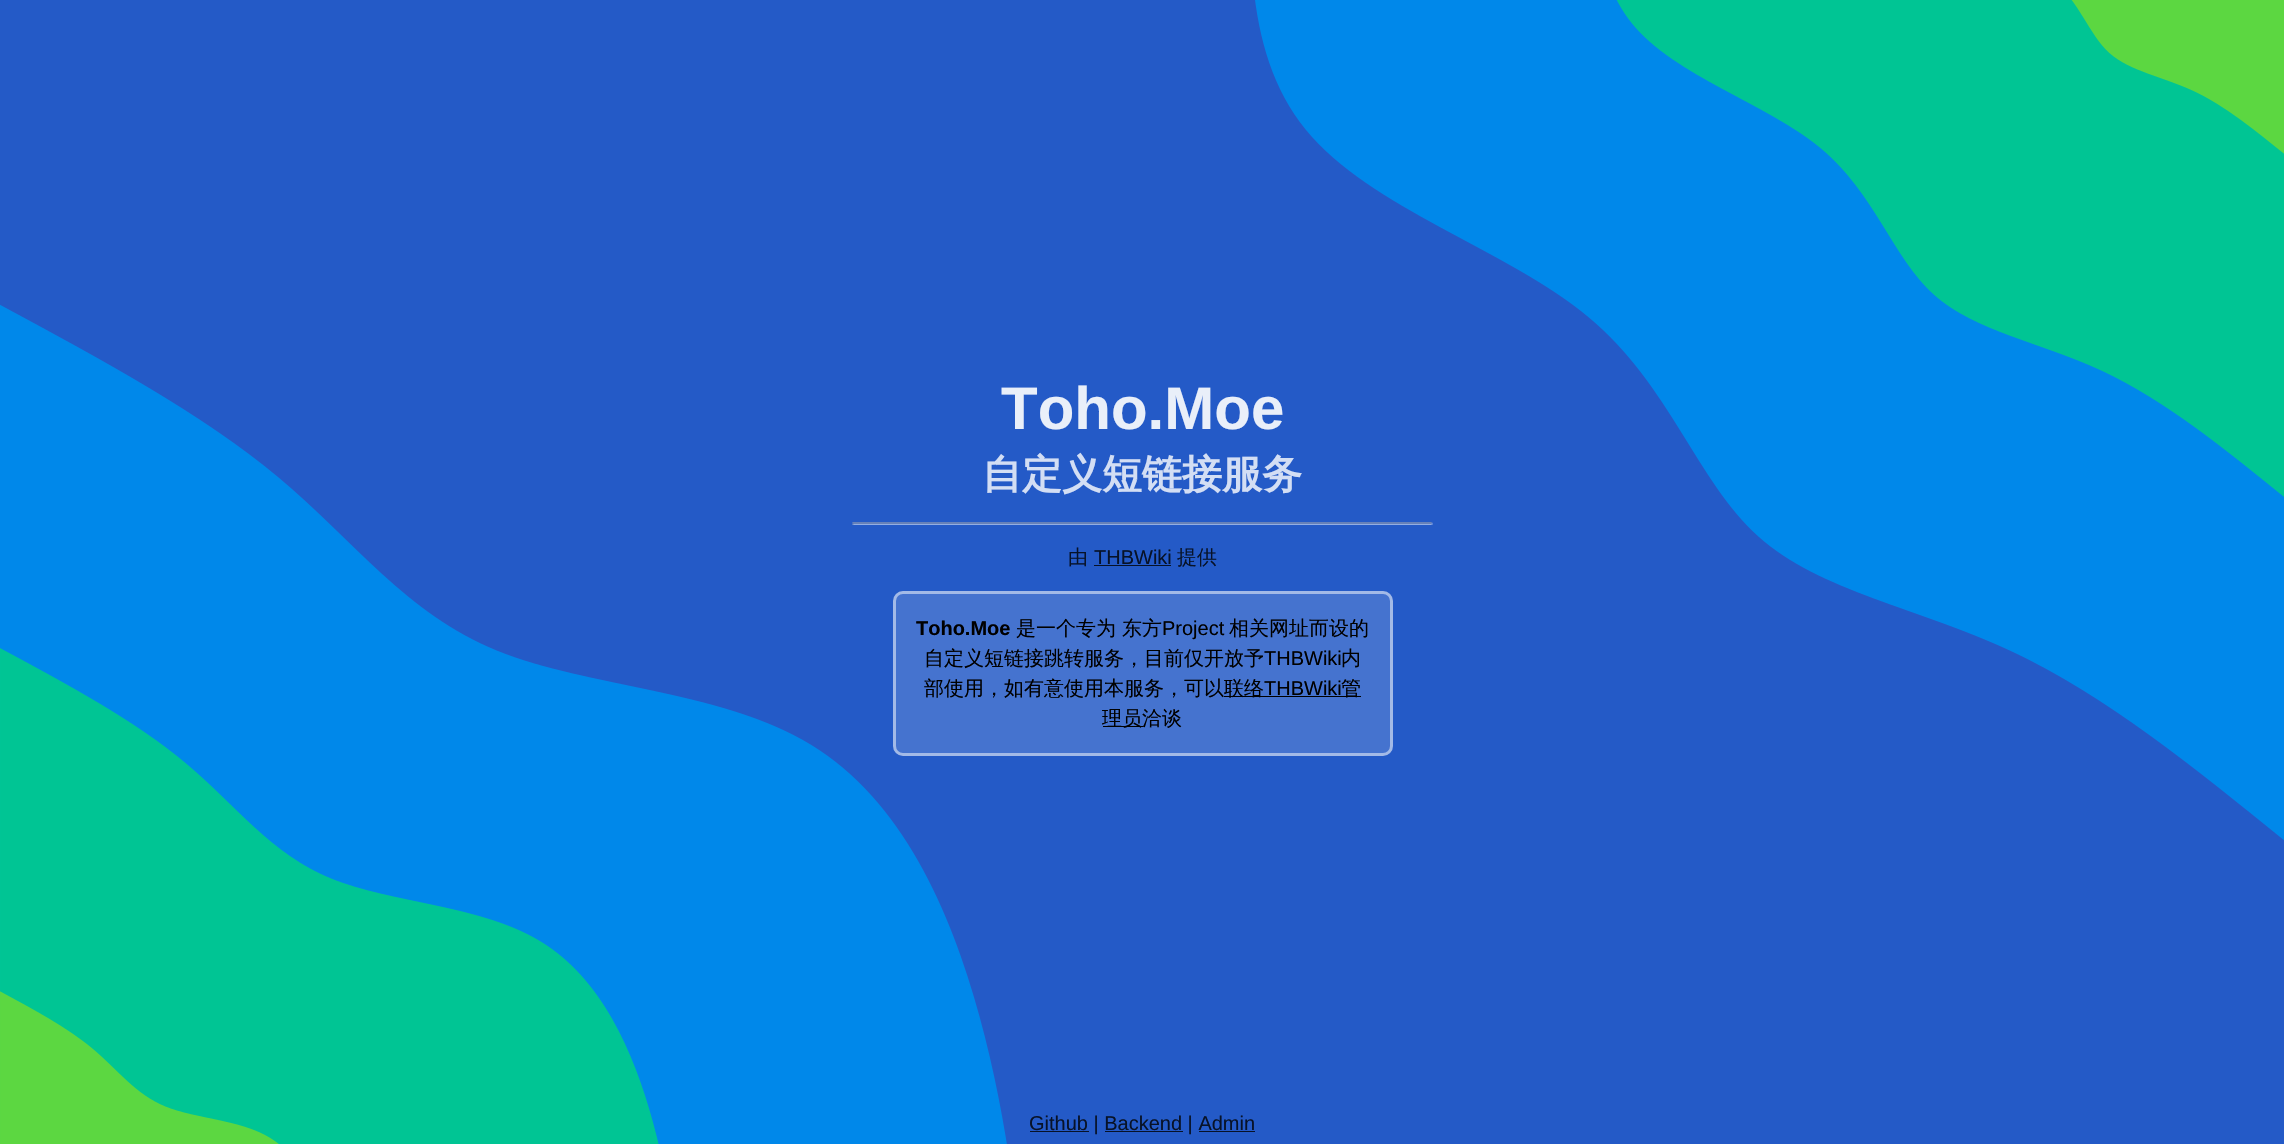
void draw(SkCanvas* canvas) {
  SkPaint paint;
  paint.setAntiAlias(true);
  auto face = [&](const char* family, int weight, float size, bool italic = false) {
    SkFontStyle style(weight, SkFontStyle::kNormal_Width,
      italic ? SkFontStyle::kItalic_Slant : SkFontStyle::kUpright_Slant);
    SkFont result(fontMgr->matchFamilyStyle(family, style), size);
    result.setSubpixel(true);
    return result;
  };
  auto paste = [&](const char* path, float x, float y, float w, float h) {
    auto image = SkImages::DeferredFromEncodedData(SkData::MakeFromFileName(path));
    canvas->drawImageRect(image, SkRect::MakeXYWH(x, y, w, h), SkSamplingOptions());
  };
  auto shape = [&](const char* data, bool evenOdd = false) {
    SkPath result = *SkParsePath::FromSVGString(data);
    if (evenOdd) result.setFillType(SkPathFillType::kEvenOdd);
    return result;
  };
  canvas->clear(0xffffffff);
  paste("img/1.png", 0, 0, 2284, 1144);
  paint.setColor(0xff6782b9);
  canvas->drawPath(shape("M852 522H1432L1431 524H854Z"), paint);
  paint.setColor(0x80ffffff);
  canvas->drawPath(shape("M1432.5 522.5V525L1431 524Z"), paint);
  canvas->drawPath(shape("M1432 525H852L854 524H1431Z"), paint);
  paint.setColor(0x80aaaaaa);
  canvas->drawPath(shape("M852.5 525V522.5L854 524Z"), paint);
  paint.setColor(0xff071228);
  canvas->drawRect(SkRect::MakeXYWH(1094, 565, 77, 1), paint);
  paint.setColor(0xff4573cf);
  canvas->drawRoundRect(SkRect::MakeXYWH(893, 591, 500, 165), 10, 10, paint);
  paint.setStroke(true);
  paint.setStrokeWidth(3);
  paint.setColor(0x80ffffff);
  canvas->drawRoundRect(SkRect::MakeXYWH(894.5f, 592.5f, 497, 162), 8.5f, 8.5f, paint);
  paint.setStroke(false);
  {
    const struct { float x, y, w, h; SkColor color; } items[] = {
      {1224, 696, 137, 1, 0xff000000},
      {1103, 726, 40, 1, 0xff000000},
      {1030, 1131, 59, 1, 0xff071228},
      {1105, 1131, 78, 1, 0xff071228},
      {1199, 1131, 56, 1, 0xff071228},
    };
    for (auto [x, y, w, h, color] : items) {
      paint.setColor(color);
      canvas->drawRect(SkRect::MakeXYWH(x, y, w, h), paint);
    }
  }
  auto f0 = face("Liberation Sans", 700, 60);
  paint.setColor(0xffe9eff9);
  canvas->drawString("Toho.Moe", 1001, 429, f0, paint);
  auto f1 = face("WenQuanYi Zen Hei", 700, 40);
  paint.setColor(0xffd3def4);
  canvas->drawString("自定义短链接服务", 982, 488, f1, paint);
  auto f2 = face("WenQuanYi Zen Hei", 500, 20);
  paint.setColor(0xff071228);
  canvas->drawString("由", 1068, 564, f2, paint);
  auto f3 = face("Liberation Sans", 400, 20);
  canvas->drawString("THBWiki", 1094, 564, f3, paint);
  canvas->drawString("提供", 1177, 564, f2, paint);
  auto f4 = face("Liberation Sans", 700, 20);
  paint.setColor(0xff000000);
  canvas->drawString("Toho.Moe", 916, 635, f4, paint);
  canvas->drawString("是一个专为 东方", 1016, 635, f2, paint);
  canvas->drawString("Project", 1162, 635, f3, paint);
  canvas->drawString("相关网址而设的", 1229, 635, f2, paint);
  canvas->drawString("自定义短链接跳转服务，目前仅开放予", 924, 665, f2, paint);
  canvas->drawString("THBWiki", 1264, 665, f3, paint);
  {
    const struct { const char* s; float x, y; } items[] = {
      {"内", 1341, 665},
      {"部使用，如有意使用本服务，可以", 924, 695},
      {"联络", 1224, 695},
    };
    for (auto [s, x, y] : items) {
      canvas->drawString(s, x, y, f2, paint);
    }
  }
  canvas->drawString("THBWiki", 1264, 695, f3, paint);
  canvas->drawString("管", 1341, 695, f2, paint);
  canvas->drawString("理员洽谈", 1102, 725, f2, paint);
  paint.setColor(0xff071228);
  canvas->drawString("Github | Backend | Admin", 1029, 1130, f3, paint);
}
